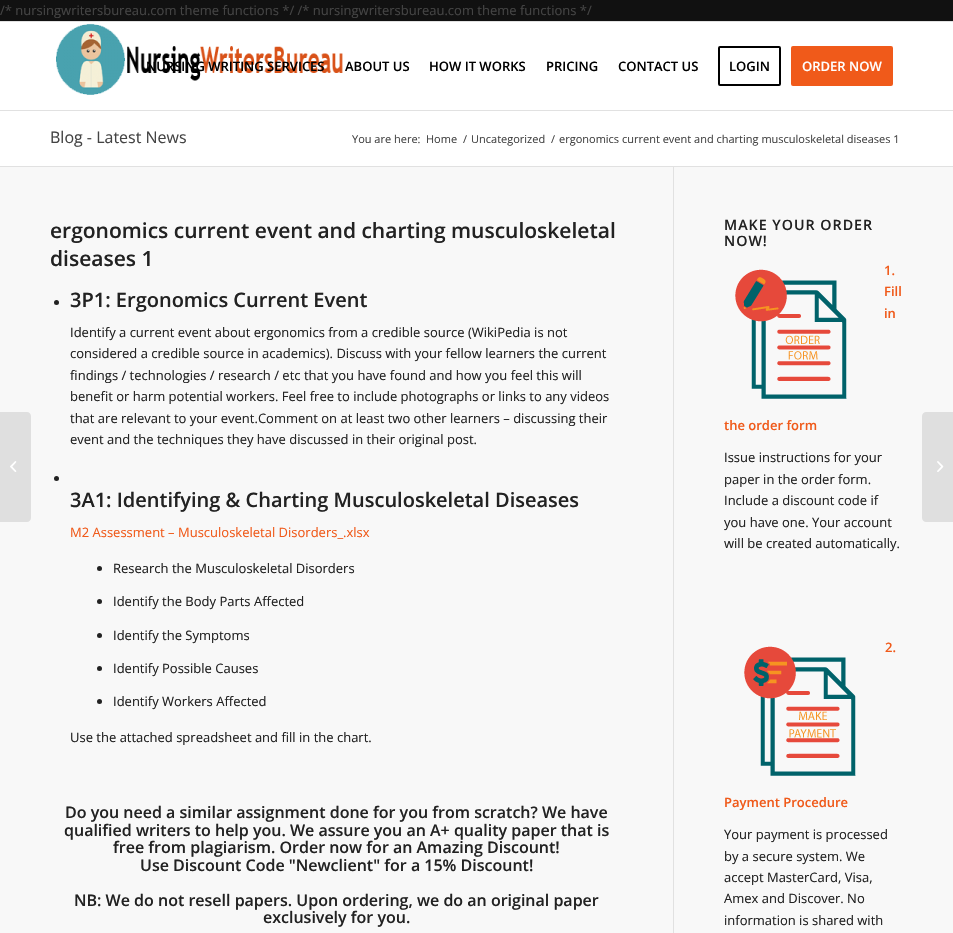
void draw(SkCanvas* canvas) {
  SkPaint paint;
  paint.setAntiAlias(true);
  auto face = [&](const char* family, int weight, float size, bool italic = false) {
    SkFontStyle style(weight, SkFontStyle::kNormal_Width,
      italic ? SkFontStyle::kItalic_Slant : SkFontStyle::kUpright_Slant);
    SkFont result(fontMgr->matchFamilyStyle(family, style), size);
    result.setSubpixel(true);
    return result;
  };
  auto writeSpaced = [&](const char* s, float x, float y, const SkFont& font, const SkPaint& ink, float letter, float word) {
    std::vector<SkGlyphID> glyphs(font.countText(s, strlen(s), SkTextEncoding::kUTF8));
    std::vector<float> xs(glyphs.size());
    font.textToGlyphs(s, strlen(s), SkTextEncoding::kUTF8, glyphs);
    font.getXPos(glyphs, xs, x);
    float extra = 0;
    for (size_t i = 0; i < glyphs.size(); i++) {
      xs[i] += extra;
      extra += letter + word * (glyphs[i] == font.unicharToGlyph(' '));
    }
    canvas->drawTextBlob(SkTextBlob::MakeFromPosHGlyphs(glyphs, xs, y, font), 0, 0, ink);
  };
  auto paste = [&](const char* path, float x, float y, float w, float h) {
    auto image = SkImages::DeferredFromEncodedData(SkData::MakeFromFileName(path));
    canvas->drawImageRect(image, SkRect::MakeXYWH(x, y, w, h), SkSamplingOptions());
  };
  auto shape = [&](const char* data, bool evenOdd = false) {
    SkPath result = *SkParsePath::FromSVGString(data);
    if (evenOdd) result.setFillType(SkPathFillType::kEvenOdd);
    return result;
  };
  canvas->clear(0xff111111);
  {
    const struct { float x, y, w, h; SkColor color; } items[] = {
      {0, 21, 953, 1, 0xffe1e1e1},
      {0, 22, 953, 144, 0xffffffff},
      {0, 110, 953, 1, 0xffe1e1e1},
    };
    for (auto [x, y, w, h, color] : items) {
      paint.setColor(color);
      canvas->drawRect(SkRect::MakeXYWH(x, y, w, h), paint);
    }
  }
  paste("img/1.png", 56, 23, 287, 72);
  paint.setStroke(true);
  paint.setStrokeWidth(2);
  paint.setColor(0xff000000);
  canvas->drawRoundRect(SkRect::MakeXYWH(719, 47, 61, 38), 1, 1, paint);
  paint.setStroke(false);
  paint.setColor(0xfff05a1a);
  canvas->drawRoundRect(SkRect::MakeXYWH(792, 47, 100, 38), 1, 1, paint);
  paint.setStroke(true);
  canvas->drawRoundRect(SkRect::MakeXYWH(792, 47, 100, 38), 1, 1, paint);
  paint.setStroke(false);
  paint.setColor(0xfff8f8f8);
  canvas->drawRect(SkRect::MakeXYWH(0, 167, 953, 766), paint);
  paint.setColor(0xffdfdfdf);
  canvas->drawPath(shape("M0 412H27C29 412 31 414 31 416V518C31 520 29 522 27 522H0Z"), paint);
  paste("img/2.png", 10, 461, 7, 11);
  paint.setColor(0xffe1e1e1);
  canvas->drawRect(SkRect::MakeXYWH(0, 166, 953, 1), paint);
  canvas->drawRect(SkRect::MakeXYWH(673, 167, 1, 766), paint);
  paint.setColor(0xff222222);
  canvas->drawCircle(56.5f, 302.5f, 2.5f, paint);
  canvas->drawCircle(56.5f, 478.5f, 2.5f, paint);
  canvas->drawCircle(99.5f, 568.5f, 2.5f, paint);
  canvas->drawCircle(99.5f, 601.5f, 2.5f, paint);
  canvas->drawCircle(99.5f, 635.5f, 2.5f, paint);
  canvas->drawCircle(99.5f, 668.5f, 2.5f, paint);
  canvas->drawCircle(99.5f, 701.5f, 2.5f, paint);
  paste("img/3.png", 735, 269, 112, 130);
  paste("img/4.png", 744, 646, 112, 130);
  paint.setColor(0xffdfdfdf);
  canvas->drawPath(shape("M926 412H953V522H926C924 522 922 520 922 518V416C922 414 924 412 926 412Z"), paint);
  paste("img/5.png", 937, 461, 7, 11);
  auto f0 = face("Open Sans", 400, 13);
  paint.setColor(0xff444444);
  canvas->drawString("/* nursingwritersbureau.com theme functions */ /* nursingwritersbureau.com theme functions */", 0, 15, f0, paint);
  auto f1 = face("Open Sans", 600, 13);
  paint.setColor(0xff000000);
  {
    const struct { const char* s; float x, y; } items[] = {
      {"NURSING WRITING SERVICES", 146, 71},
      {"ABOUT US", 345, 71},
      {"HOW IT WORKS", 429, 71},
      {"PRICING", 546, 71},
      {"CONTACT US", 618, 71},
      {"LOGIN", 729, 71},
    };
    for (auto [s, x, y] : items) {
      canvas->drawString(s, x, y, f1, paint);
    }
  }
  paint.setColor(0xffffffff);
  canvas->drawString("ORDER NOW", 802, 71, f1, paint);
  auto f2 = face("Open Sans", 400, 16);
  paint.setColor(0xff444444);
  canvas->drawString("Blog - Latest News", 50, 143, f2, paint);
  auto f3 = face("Open Sans", 400, 11);
  {
    const struct { const char* s; float x, y; } items[] = {
      {"You are here:", 352, 143},
      {"Home", 426, 143},
      {"/", 463, 143},
      {"Uncategorized", 471, 143},
      {"/", 551, 143},
      {"ergonomics current event and charting musculoskeletal diseases 1", 559, 143},
    };
    for (auto [s, x, y] : items) {
      canvas->drawString(s, x, y, f3, paint);
    }
  }
  auto f4 = face("Open Sans", 600, 21);
  paint.setColor(0xff222222);
  canvas->drawString("ergonomics current event and charting musculoskeletal", 50, 238, f4, paint);
  canvas->drawString("diseases 1", 50, 266, f4, paint);
  auto f5 = face("Open Sans", 600, 20);
  canvas->drawString("3P1: Ergonomics Current Event", 70, 307, f5, paint);
  {
    const struct { const char* s; float x, y; } items[] = {
      {"Identify a current event about ergonomics from a credible source (WikiPedia is not", 70, 337},
      {"considered a credible source in academics). Discuss with your fellow learners the current", 70, 358},
      {"findings / technologies / research / etc that you have found and how you feel this will", 70, 380},
      {"benefit or harm potential workers. Feel free to include photographs or links to any videos", 70, 401},
      {"that are relevant to your event.Comment on at least two other learners – discussing their", 70, 423},
      {"event and the techniques they have discussed in their original post.", 70, 444},
    };
    for (auto [s, x, y] : items) {
      canvas->drawString(s, x, y, f0, paint);
    }
  }
  canvas->drawString("3A1: Identifying & Charting Musculoskeletal Diseases", 70, 507, f5, paint);
  paint.setColor(0xfff05a1a);
  canvas->drawString("M2 Assessment – Musculoskeletal Disorders_.xlsx", 70, 537, f0, paint);
  paint.setColor(0xff222222);
  {
    const struct { const char* s; float x, y; } items[] = {
      {"Research the Musculoskeletal Disorders", 113, 573},
      {"Identify the Body Parts Affected", 113, 606},
      {"Identify the Symptoms", 113, 640},
      {"Identify Possible Causes", 113, 673},
      {"Identify Workers Affected", 113, 706},
      {"Use the attached spreadsheet and fill in the chart.", 70, 742},
    };
    for (auto [s, x, y] : items) {
      canvas->drawString(s, x, y, f0, paint);
    }
  }
  auto f6 = face("Open Sans", 600, 16);
  {
    const struct { const char* s; float x, y; } items[] = {
      {"Do you need a similar assignment done for you from scratch? We have", 65, 818},
      {"qualified writers to help you. We assure you an A+ quality paper that is", 64, 836},
      {"free from plagiarism. Order now for an Amazing Discount!", 113, 853},
      {"Use Discount Code \"Newclient\" for a 15% Discount!", 140, 871},
      {"NB: We do not resell papers. Upon ordering, we do an original paper", 74, 906},
      {"exclusively for you.", 263, 923},
    };
    for (auto [s, x, y] : items) {
      canvas->drawString(s, x, y, f6, paint);
    }
  }
  auto f7 = face("Open Sans", 600, 14.25f);
  writeSpaced("MAKE YOUR ORDER", 724, 230, f7, paint, 1, 0);
  writeSpaced("NOW!", 724, 246, f7, paint, 1, 0);
  paint.setColor(0xfff05a1a);
  {
    const struct { const char* s; float x, y; } items[] = {
      {"1.", 884, 275},
      {"Fill", 884, 296},
      {"in", 884, 318},
      {"the order form", 724, 430},
    };
    for (auto [s, x, y] : items) {
      canvas->drawString(s, x, y, f1, paint);
    }
  }
  paint.setColor(0xff222222);
  {
    const struct { const char* s; float x, y; } items[] = {
      {"Issue instructions for your", 724, 462},
      {"paper in the order form.", 724, 484},
      {"Include a discount code if", 724, 505},
      {"you have one. Your account", 724, 527},
      {"will be created automatically.", 724, 548},
    };
    for (auto [s, x, y] : items) {
      canvas->drawString(s, x, y, f0, paint);
    }
  }
  paint.setColor(0xfff05a1a);
  canvas->drawString("2.", 885, 652, f1, paint);
  canvas->drawString("Payment Procedure", 724, 807, f1, paint);
  paint.setColor(0xff222222);
  {
    const struct { const char* s; float x, y; } items[] = {
      {"Your payment is processed", 724, 839},
      {"by a secure system. We", 724, 861},
      {"accept MasterCard, Visa,", 724, 882},
      {"Amex and Discover. No", 724, 903},
      {"information is shared with", 724, 925},
    };
    for (auto [s, x, y] : items) {
      canvas->drawString(s, x, y, f0, paint);
    }
  }
}
